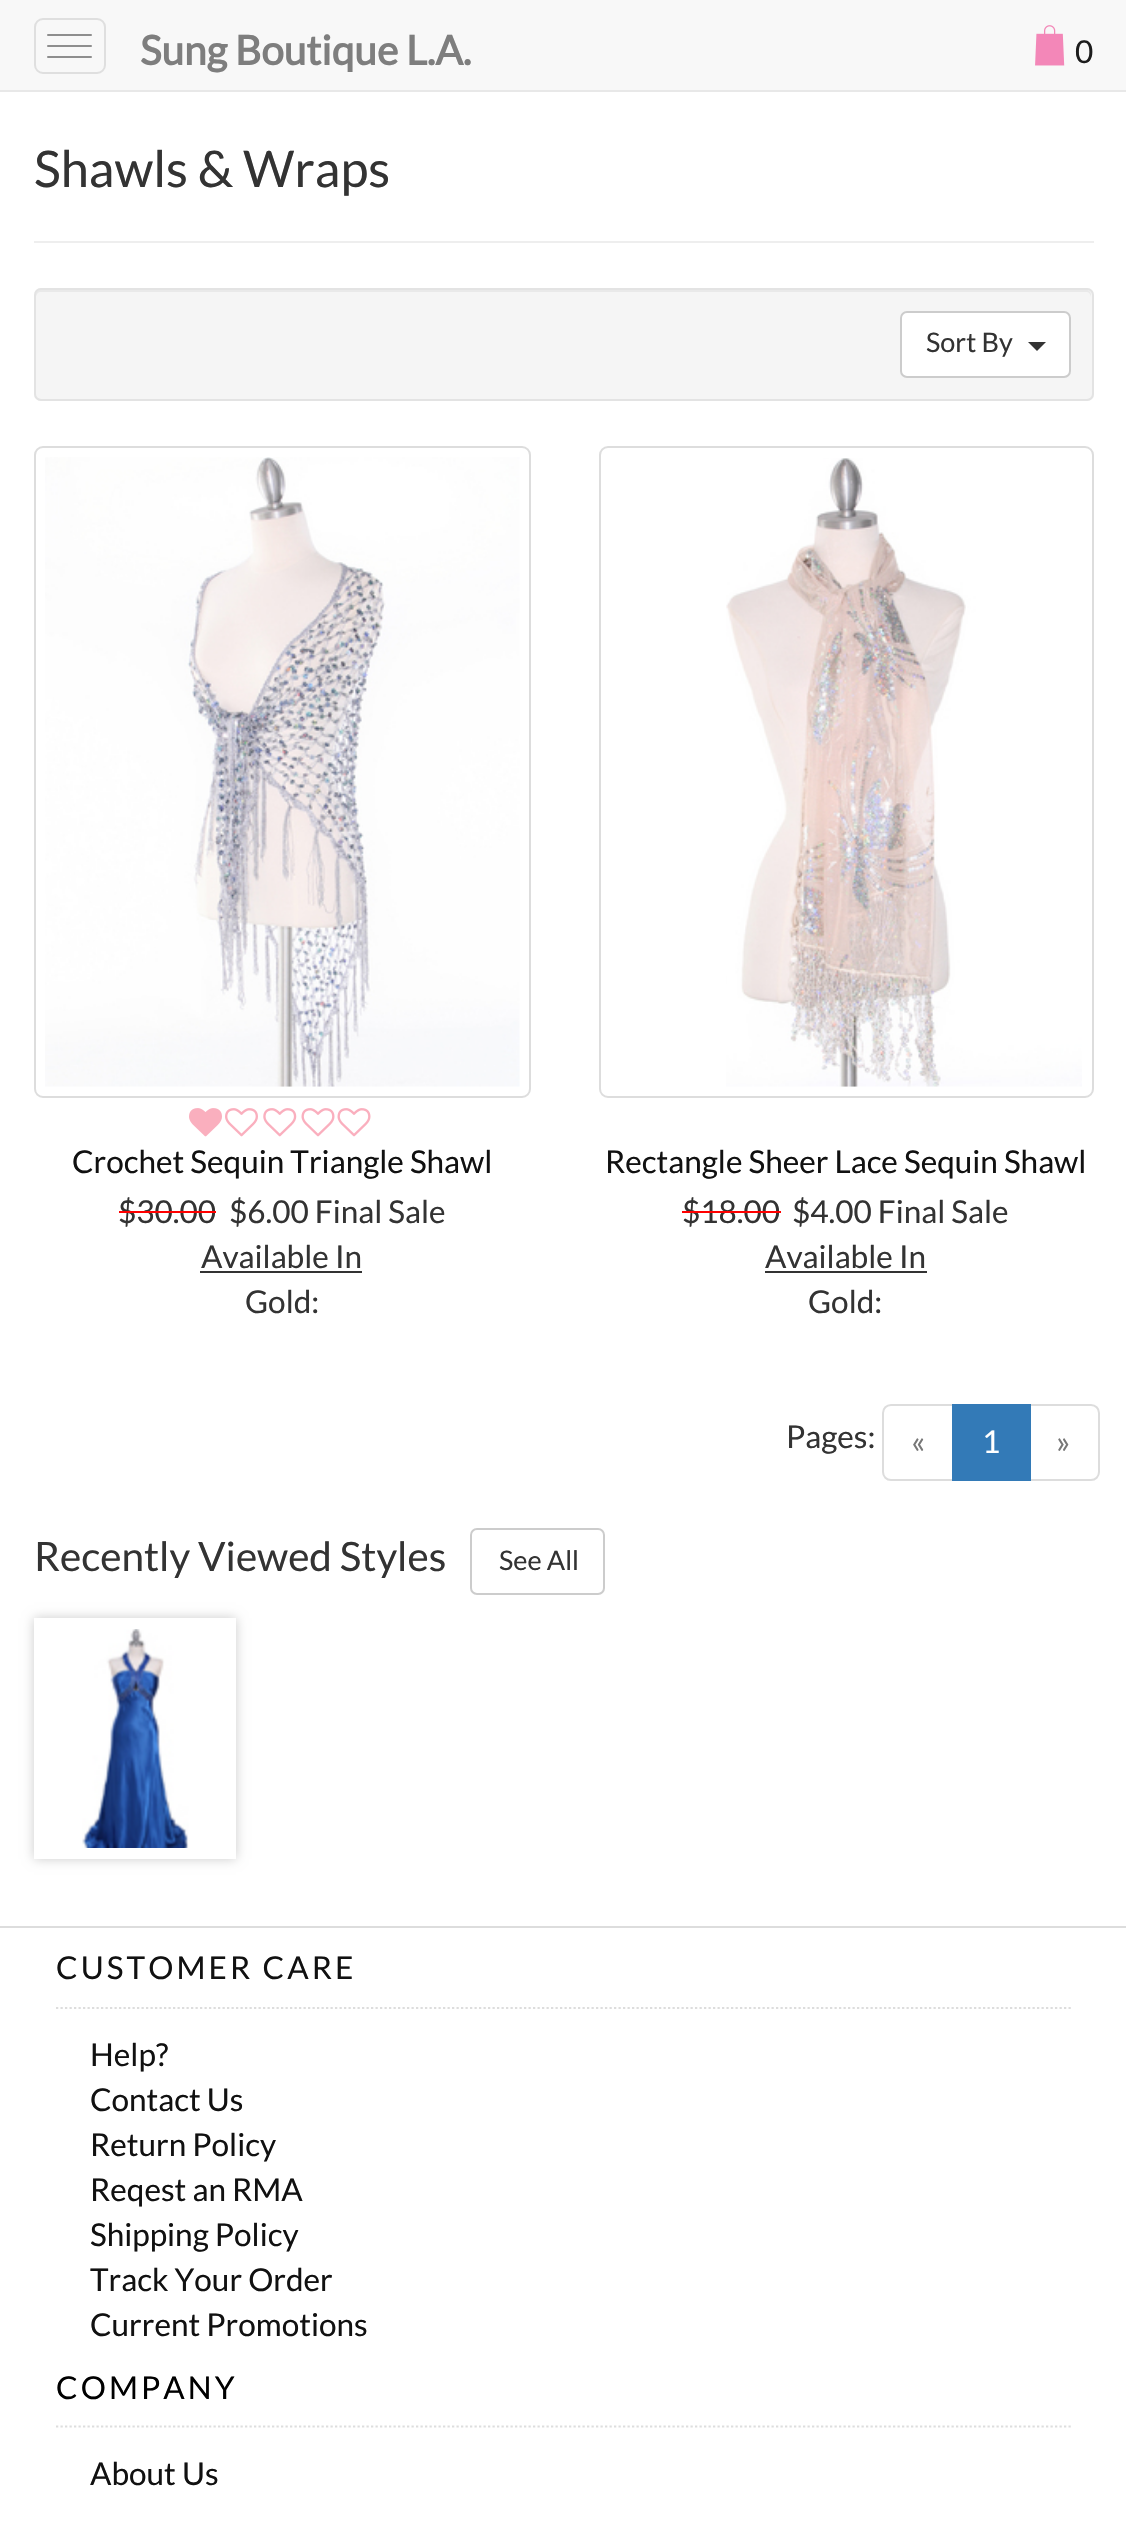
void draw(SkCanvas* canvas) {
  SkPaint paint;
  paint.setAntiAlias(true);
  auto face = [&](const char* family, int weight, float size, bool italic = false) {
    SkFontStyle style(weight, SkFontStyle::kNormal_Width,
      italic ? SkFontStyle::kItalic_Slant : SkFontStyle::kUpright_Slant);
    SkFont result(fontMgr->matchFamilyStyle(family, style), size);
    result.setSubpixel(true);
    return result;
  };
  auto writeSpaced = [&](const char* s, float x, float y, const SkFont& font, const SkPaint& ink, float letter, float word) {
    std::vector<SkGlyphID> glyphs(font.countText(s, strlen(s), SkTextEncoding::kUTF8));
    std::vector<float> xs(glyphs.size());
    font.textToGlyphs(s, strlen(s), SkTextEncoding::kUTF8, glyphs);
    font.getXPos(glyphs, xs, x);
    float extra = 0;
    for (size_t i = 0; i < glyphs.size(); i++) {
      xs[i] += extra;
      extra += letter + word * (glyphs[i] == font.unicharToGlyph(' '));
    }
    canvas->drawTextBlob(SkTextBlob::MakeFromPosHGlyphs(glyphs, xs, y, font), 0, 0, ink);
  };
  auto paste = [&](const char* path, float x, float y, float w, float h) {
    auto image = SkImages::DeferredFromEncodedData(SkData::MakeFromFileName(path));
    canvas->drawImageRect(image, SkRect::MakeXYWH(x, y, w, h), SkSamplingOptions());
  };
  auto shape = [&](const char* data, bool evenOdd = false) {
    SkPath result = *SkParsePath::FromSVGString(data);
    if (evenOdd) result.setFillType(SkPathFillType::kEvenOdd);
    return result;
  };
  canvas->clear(0xffffffff);
  paint.setColor(0xfff8f8f8);
  canvas->drawRect(SkRect::MakeXYWH(0, 0, 1126, 90), paint);
  paint.setColor(0xffe8e8e8);
  canvas->drawRect(SkRect::MakeXYWH(0, 90, 1126, 2), paint);
  paint.setStroke(true);
  paint.setStrokeWidth(2);
  paint.setColor(0xffdfdfdf);
  canvas->drawRoundRect(SkRect::MakeXYWH(35, 19, 70, 54), 8, 8, paint);
  paint.setStroke(false);
  paint.setColor(0xff8e8e8e);
  canvas->drawRoundRect(SkRect::MakeXYWH(47, 34, 45, 2), 1, 1, paint);
  canvas->drawRoundRect(SkRect::MakeXYWH(47, 45, 45, 2), 1, 1, paint);
  canvas->drawRoundRect(SkRect::MakeXYWH(47, 56, 45, 2), 1, 1, paint);
  paste("img/1.png", 1035, 25, 30, 41);
  paint.setColor(0xffeeeeee);
  canvas->drawRect(SkRect::MakeXYWH(34, 241, 1060, 2), paint);
  paint.setColor(0xfff5f5f5);
  canvas->drawRoundRect(SkRect::MakeXYWH(34, 288, 1060, 113), 7, 7, paint);
  paint.setColor(0xffe9e9e9);
  canvas->drawPath(shape("M40 292H1087C1089 292 1091 295 1091 297V295C1091 292 1089 290 1086 290H41C38 290 36 292 36 295V297C36 295 38 292 40 292Z"), paint);
  paint.setStroke(true);
  paint.setColor(0xffe3e3e3);
  canvas->drawRoundRect(SkRect::MakeXYWH(35, 289, 1058, 111), 6, 6, paint);
  paint.setStroke(false);
  paint.setColor(0xffffffff);
  canvas->drawRoundRect(SkRect::MakeXYWH(901, 312, 169, 65), 6, 6, paint);
  paint.setStroke(true);
  paint.setColor(0xffcccccc);
  canvas->drawRoundRect(SkRect::MakeXYWH(901, 312, 169, 65), 6, 6, paint);
  paint.setStroke(false);
  paint.setColor(0xff333333);
  canvas->drawPath(shape("M1028 342H1046L1037 351Z"), paint);
  paint.setStroke(true);
  paint.setColor(0xffdddddd);
  canvas->drawRoundRect(SkRect::MakeXYWH(35, 447, 495, 650), 8, 8, paint);
  paste("img/2.png", 45, 457, 475, 630);
  paste("img/3.png", 189, 1108, 33, 29);
  paste("img/4.png", 225, 1108, 33, 29);
  paste("img/5.png", 263, 1108, 34, 29);
  paste("img/6.png", 301, 1108, 34, 29);
  paste("img/6.png", 337, 1108, 34, 29);
  paint.setStroke(false);
  paint.setColor(0xff333333);
  canvas->drawRect(SkRect::MakeXYWH(200, 1271, 162, 2), paint);
  paint.setStroke(true);
  paint.setColor(0xffdddddd);
  canvas->drawRoundRect(SkRect::MakeXYWH(600, 447, 493, 650), 8, 8, paint);
  paste("img/7.png", 726, 458, 356, 629);
  paint.setStroke(false);
  paint.setColor(0xff333333);
  canvas->drawRect(SkRect::MakeXYWH(765, 1271, 162, 2), paint);
  paint.setStroke(true);
  paint.setColor(0xffdddddd);
  canvas->drawPath(shape("M891 1405H953V1480H891C886.5 1480 883 1476.5 883 1472V1413C883 1408.5 886.5 1405 891 1405Z"), paint);
  canvas->drawPath(shape("M1029 1405H1091C1095.5 1405 1099 1408.5 1099 1413V1472C1099 1476.5 1095.5 1480 1091 1480H1029Z"), paint);
  paint.setStroke(false);
  paint.setColor(0xff337ab7);
  canvas->drawRect(SkRect::MakeXYWH(952, 1404, 79, 77), paint);
  paint.setStroke(true);
  paint.setColor(0xffcccccc);
  canvas->drawRoundRect(SkRect::MakeXYWH(471, 1529, 133, 65), 6, 6, paint);
  paint.setStroke(false);
  paint.setMaskFilter(SkMaskFilter::MakeBlur(kNormal_SkBlurStyle, 5.5f));
  canvas->drawRect(SkRect::MakeXYWH(34, 1618, 202, 241), paint);
  paint.setMaskFilter(nullptr);
  paint.setColor(0xffffffff);
  canvas->drawRect(SkRect::MakeXYWH(34, 1618, 202, 241), paint);
  paste("img/8.png", 82, 1629, 107, 219);
  paint.setColor(0xffdddddd);
  canvas->drawRect(SkRect::MakeXYWH(0, 1926, 1126, 2), paint);
  paint.setStroke(true);
  paint.setStrokeWidth(2.2f);
  paint.setPathEffect(SkDashPathEffect::Make({{2.25f, 2.25f}}, 0));
  canvas->drawPath(shape("M56 2008H1071"), paint);
  paint.setPathEffect(nullptr);
  paint.setPathEffect(SkDashPathEffect::Make({{2.25f, 2.25f}}, 0));
  canvas->drawPath(shape("M56 2426.5H1071"), paint);
  paint.setPathEffect(nullptr);
  auto f0 = face("Lato", 700, 40.5f);
  paint.setStroke(false);
  paint.setColor(0xff7e7e7e);
  canvas->drawString("Sung Boutique L.A.", 140, 65, f0, paint);
  auto f1 = face("Lato", 400, 31.5f);
  paint.setColor(0xff1d1d1d);
  canvas->drawString("0", 1075, 63, f1, paint);
  auto f2 = face("Lato", 400, 50.5f);
  paint.setColor(0xff333333);
  canvas->drawString("Shawls & Wraps", 34, 187, f2, paint);
  auto f3 = face("Lato", 400, 27);
  canvas->drawString("Sort By", 926, 352, f3, paint);
  paint.setColor(0xff111111);
  canvas->drawString("Crochet Sequin Triangle Shawl", 72, 1173, f1, paint);
  paint.setColor(0xff333333);
  canvas->drawString("$30.00", 118, 1223, f1, paint);
  paint.setColor(0xffff0000);
  canvas->drawRect(SkRect::MakeXYWH(119, 1211, 97, 2), paint);
  paint.setColor(0xff333333);
  {
    const struct { const char* s; float x, y; } items[] = {
      {"$6.00 Final Sale", 229, 1223},
      {"Available In", 201, 1268},
      {"Gold:", 245, 1313},
    };
    for (auto [s, x, y] : items) {
      canvas->drawString(s, x, y, f1, paint);
    }
  }
  paint.setColor(0xff111111);
  canvas->drawString("Rectangle Sheer Lace Sequin Shawl", 605, 1173, f1, paint);
  paint.setColor(0xff333333);
  canvas->drawString("$18.00", 682, 1223, f1, paint);
  paint.setColor(0xffff0000);
  canvas->drawRect(SkRect::MakeXYWH(682, 1211, 99, 2), paint);
  paint.setColor(0xff333333);
  {
    const struct { const char* s; float x, y; } items[] = {
      {"$4.00 Final Sale", 792, 1223},
      {"Available In", 765, 1268},
      {"Gold:", 808, 1313},
      {"Pages:", 786, 1448},
    };
    for (auto [s, x, y] : items) {
      canvas->drawString(s, x, y, f1, paint);
    }
  }
  paint.setColor(0xff777777);
  canvas->drawString("«", 911, 1453, f1, paint);
  paint.setColor(0xffffffff);
  canvas->drawString("1", 982, 1453, f1, paint);
  paint.setColor(0xff777777);
  canvas->drawString("»", 1056, 1453, f1, paint);
  auto f4 = face("Lato", 400, 40.5f);
  paint.setColor(0xff333333);
  canvas->drawString("Recently Viewed Styles", 34, 1571, f4, paint);
  canvas->drawString("See All", 499, 1570, f3, paint);
  paint.setColor(0xff111111);
  writeSpaced("CUSTOMER CARE", 56, 1979, f1, paint, 3.1f, 0);
  {
    const struct { const char* s; float x, y; } items[] = {
      {"Help?", 90, 2066},
      {"Contact Us", 90, 2111},
      {"Return Policy", 90, 2156},
      {"Reqest an RMA", 90, 2201},
      {"Shipping Policy", 90, 2246},
      {"Track Your Order", 90, 2291},
      {"Current Promotions", 90, 2336},
    };
    for (auto [s, x, y] : items) {
      canvas->drawString(s, x, y, f1, paint);
    }
  }
  paint.setColor(0xff000000);
  writeSpaced("COMPANY", 56, 2399, f1, paint, 3.1f, 0);
  paint.setColor(0xff111111);
  canvas->drawString("About Us", 90, 2485, f1, paint);
}
